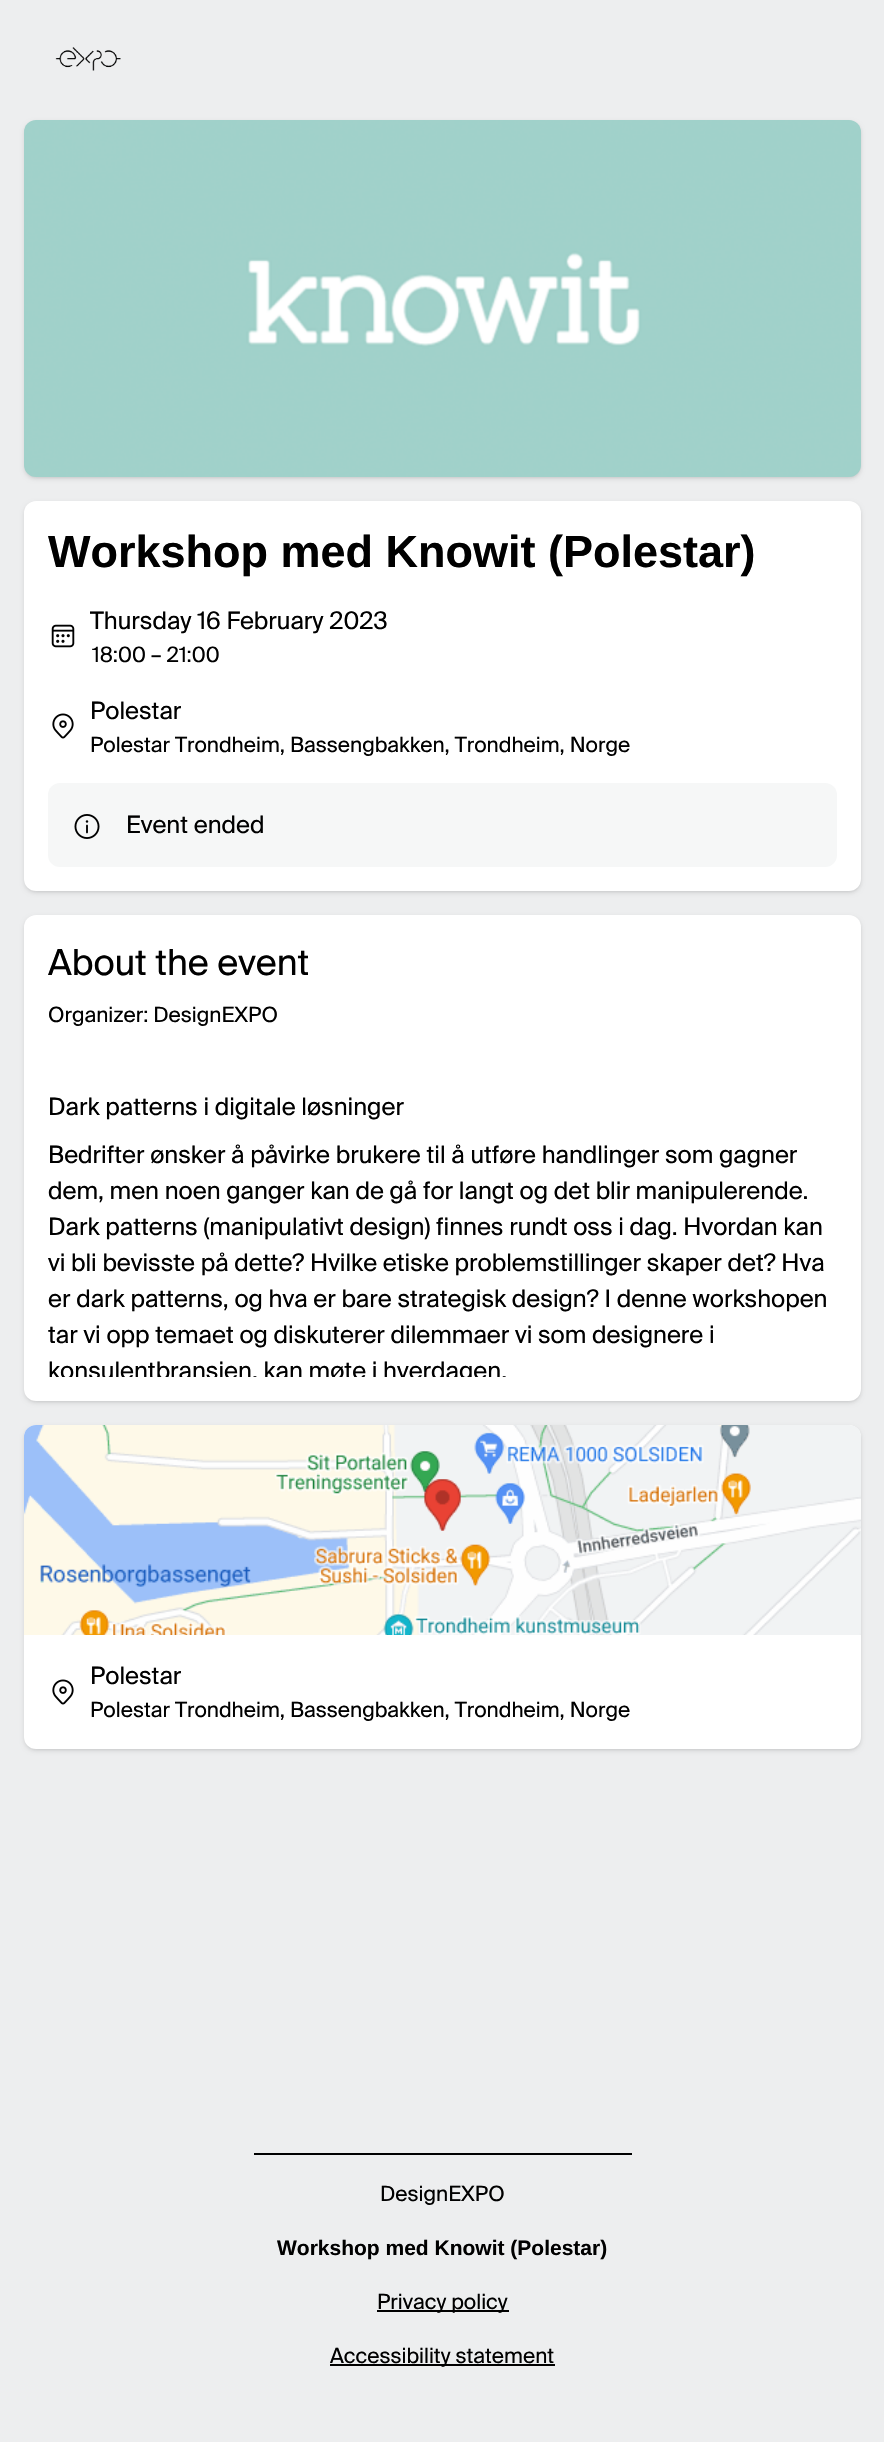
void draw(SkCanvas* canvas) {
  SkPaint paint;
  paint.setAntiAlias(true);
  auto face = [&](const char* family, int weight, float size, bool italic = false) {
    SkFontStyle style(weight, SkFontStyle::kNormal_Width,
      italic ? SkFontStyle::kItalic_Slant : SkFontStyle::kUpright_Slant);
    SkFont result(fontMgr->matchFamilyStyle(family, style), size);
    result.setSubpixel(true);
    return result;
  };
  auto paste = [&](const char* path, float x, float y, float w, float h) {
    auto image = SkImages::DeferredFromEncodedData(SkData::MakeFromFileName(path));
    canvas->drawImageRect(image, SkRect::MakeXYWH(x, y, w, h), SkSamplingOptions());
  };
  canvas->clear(0xffedeeef);
  paste("img/1.png", 55, 47, 66, 24);
  paint.setColor(0x1a000000);
  paint.setMaskFilter(SkMaskFilter::MakeBlur(kNormal_SkBlurStyle, 1.5f));
  canvas->drawRoundRect(SkRect::MakeXYWH(26, 123, 834, 354), 11, 11, paint);
  paint.setMaskFilter(nullptr);
  paint.setMaskFilter(SkMaskFilter::MakeBlur(kNormal_SkBlurStyle, 2));
  canvas->drawRoundRect(SkRect::MakeXYWH(24, 122, 837, 357), 12, 12, paint);
  paint.setMaskFilter(nullptr);
  paste("img/2.png", 24, 120, 837, 357);
  paint.setMaskFilter(SkMaskFilter::MakeBlur(kNormal_SkBlurStyle, 1.5f));
  canvas->drawRoundRect(SkRect::MakeXYWH(26, 504, 834, 387), 11, 11, paint);
  paint.setMaskFilter(nullptr);
  paint.setMaskFilter(SkMaskFilter::MakeBlur(kNormal_SkBlurStyle, 2));
  canvas->drawRoundRect(SkRect::MakeXYWH(24, 503, 837, 390), 12, 12, paint);
  paint.setMaskFilter(nullptr);
  paint.setColor(0xffffffff);
  canvas->drawRoundRect(SkRect::MakeXYWH(24, 501, 837, 390), 12, 12, paint);
  paste("img/3.png", 51, 624, 24, 24);
  paste("img/4.png", 52, 713, 22, 26);
  paint.setColor(0xfff6f7f7);
  canvas->drawRoundRect(SkRect::MakeXYWH(48, 783, 789, 84), 12, 12, paint);
  paste("img/5.png", 74, 814, 26, 25);
  paint.setColor(0x1a000000);
  paint.setMaskFilter(SkMaskFilter::MakeBlur(kNormal_SkBlurStyle, 1.5f));
  canvas->drawRoundRect(SkRect::MakeXYWH(26, 918, 834, 483), 11, 11, paint);
  paint.setMaskFilter(nullptr);
  paint.setMaskFilter(SkMaskFilter::MakeBlur(kNormal_SkBlurStyle, 2));
  canvas->drawRoundRect(SkRect::MakeXYWH(24, 917, 837, 486), 12, 12, paint);
  paint.setMaskFilter(nullptr);
  paint.setColor(0xffffffff);
  canvas->drawRoundRect(SkRect::MakeXYWH(24, 915, 837, 486), 12, 12, paint);
  paint.setColor(0x1a000000);
  paint.setMaskFilter(SkMaskFilter::MakeBlur(kNormal_SkBlurStyle, 1.5f));
  canvas->drawRoundRect(SkRect::MakeXYWH(26, 1428, 834, 321), 11, 11, paint);
  paint.setMaskFilter(nullptr);
  paint.setMaskFilter(SkMaskFilter::MakeBlur(kNormal_SkBlurStyle, 2));
  canvas->drawRoundRect(SkRect::MakeXYWH(24, 1427, 837, 324), 12, 12, paint);
  paint.setMaskFilter(nullptr);
  paint.setColor(0xffffffff);
  canvas->drawRoundRect(SkRect::MakeXYWH(24, 1425, 837, 324), 12, 12, paint);
  paste("img/6.png", 24, 1425, 837, 210);
  paste("img/4.png", 52, 1679, 22, 26);
  {
    const struct { float x, y, w, h; SkColor color; } items[] = {
      {254, 2153, 378, 2, 0xff000000},
      {377, 2310, 132, 2, 0xff000000},
      {330, 2364, 225, 2, 0xff000000},
    };
    for (auto [x, y, w, h, color] : items) {
      paint.setColor(color);
      canvas->drawRect(SkRect::MakeXYWH(x, y, w, h), paint);
    }
  }
  auto f0 = face("Liberation Sans", 700, 45);
  canvas->drawString("Workshop med Knowit (Polestar)", 48, 567, f0, paint);
  auto f1 = face("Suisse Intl", 400, 24);
  canvas->drawString("Thursday 16 February 2023", 90, 629, f1, paint);
  auto f2 = face("Suisse Intl", 400, 21);
  canvas->drawString("18:00 – 21:00", 92, 662, f2, paint);
  canvas->drawString("Polestar", 90, 719, f1, paint);
  canvas->drawString("Polestar Trondheim, Bassengbakken, Trondheim, Norge", 90, 752, f2, paint);
  canvas->drawString("Event ended", 126, 833, f1, paint);
  auto f3 = face("Suisse Intl", 400, 36);
  canvas->drawString("About the event", 48, 975, f3, paint);
  canvas->drawString("Organizer: DesignEXPO", 48, 1022, f2, paint);
  {
    const struct { const char* s; float x, y; } items[] = {
      {"Dark patterns i digitale løsninger", 48, 1115},
      {"Bedrifter ønsker å påvirke brukere til å utføre handlinger som gagner", 48, 1163},
      {"dem, men noen ganger kan de gå for langt og det blir manipulerende.", 48, 1199},
      {"Dark patterns (manipulativt design) finnes rundt oss i dag. Hvordan kan", 48, 1235},
      {"vi bli bevisste på dette? Hvilke etiske problemstillinger skaper det? Hva", 48, 1271},
      {"er dark patterns, og hva er bare strategisk design? I denne workshopen", 48, 1307},
      {"tar vi opp temaet og diskuterer dilemmaer vi som designere i", 48, 1343},
    };
    for (auto [s, x, y] : items) {
      canvas->drawString(s, x, y, f1, paint);
    }
  }
  canvas->save();
  canvas->clipRect(SkRect::MakeXYWH(48, 1041, 789, 336));
  canvas->drawString("konsulentbransjen, kan møte i hverdagen.", 48, 1379, f1, paint);
  canvas->restore();
  canvas->drawString("Polestar", 90, 1684, f1, paint);
  canvas->drawString("Polestar Trondheim, Bassengbakken, Trondheim, Norge", 90, 1717, f2, paint);
  canvas->drawString("DesignEXPO", 380, 2201, f2, paint);
  auto f4 = face("Liberation Sans", 700, 21);
  canvas->drawString("Workshop med Knowit (Polestar)", 277, 2255, f4, paint);
  canvas->drawString("Privacy policy", 377, 2309, f2, paint);
  canvas->drawString("Accessibility statement", 330, 2363, f2, paint);
}
